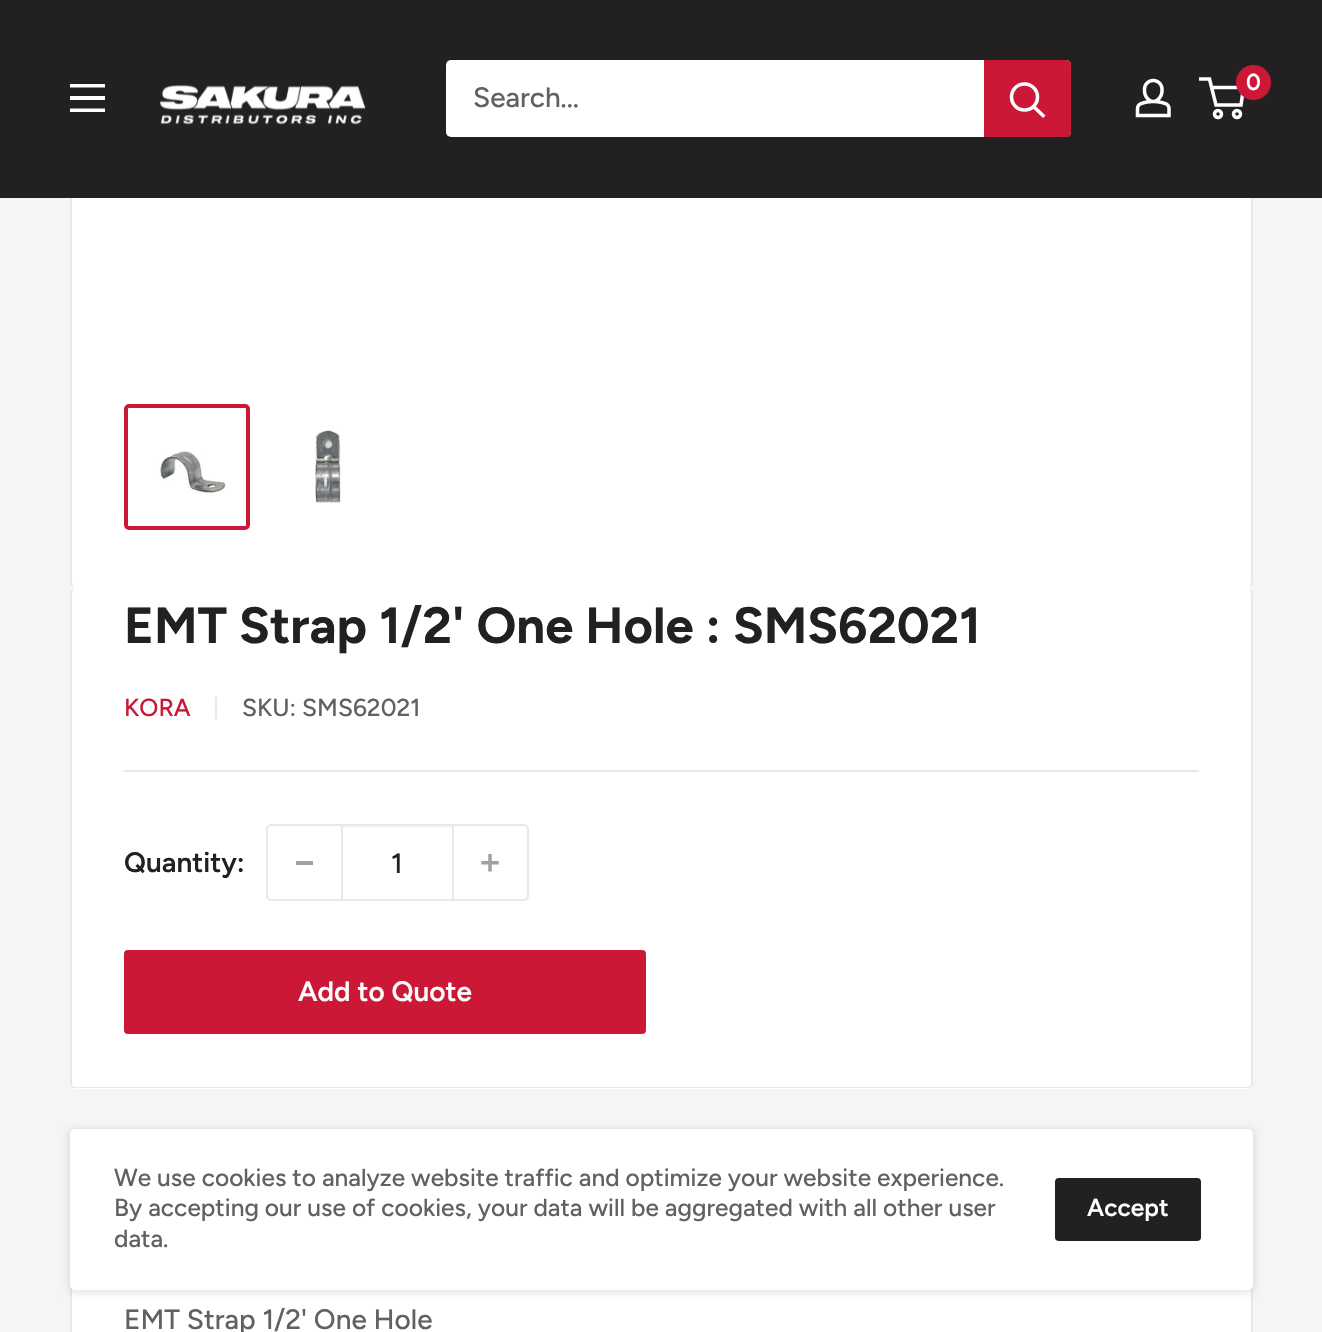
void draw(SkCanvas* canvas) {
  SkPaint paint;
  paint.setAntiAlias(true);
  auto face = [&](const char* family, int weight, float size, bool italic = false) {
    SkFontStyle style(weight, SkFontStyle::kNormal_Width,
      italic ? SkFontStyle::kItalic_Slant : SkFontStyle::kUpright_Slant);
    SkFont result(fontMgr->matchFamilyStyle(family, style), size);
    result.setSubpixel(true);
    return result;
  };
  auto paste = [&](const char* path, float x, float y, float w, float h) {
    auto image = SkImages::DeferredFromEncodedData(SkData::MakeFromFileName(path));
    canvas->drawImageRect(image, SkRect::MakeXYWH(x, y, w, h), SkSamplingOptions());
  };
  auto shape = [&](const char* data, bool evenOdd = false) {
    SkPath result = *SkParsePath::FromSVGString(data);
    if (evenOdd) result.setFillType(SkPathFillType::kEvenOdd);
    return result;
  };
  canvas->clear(0xfff5f5f5);
  paint.setColor(0xffffffff);
  canvas->drawRoundRect(SkRect::MakeXYWH(71, -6, 1181, 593), 4, 4, paint);
  paint.setStroke(true);
  paint.setStrokeWidth(2);
  paint.setColor(0xffe8e8e8);
  canvas->drawRoundRect(SkRect::MakeXYWH(71, -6, 1181, 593), 4, 4, paint);
  paint.setStroke(false);
  paint.setColor(0xff222021);
  canvas->drawRect(SkRect::MakeXYWH(0, 0, 1322, 198), paint);
  paste("img/1.png", 1135, 78, 36, 40);
  paint.setStroke(true);
  paint.setStrokeWidth(3.5f);
  paint.setColor(0xffffffff);
  canvas->drawCircle(1218, 114, 3.5f, paint);
  canvas->drawCircle(1237, 114, 3.5f, paint);
  canvas->drawPath(shape("M1211.5 87.5H1243.5L1241 105H1216L1209.5 79H1199"), paint);
  paint.setStroke(false);
  paint.setColor(0xffcb1836);
  canvas->drawCircle(1253.5f, 82.5f, 17.5f, paint);
  paint.setColor(0xffffffff);
  canvas->drawPath(shape("M70 108.5H105V112H70ZM70 84H105V87.5H70ZM70 96H105V100H70Z", true), paint);
  paste("img/2.png", 160, 85, 206, 40);
  canvas->drawRoundRect(SkRect::MakeXYWH(446, 60, 625, 77), 5, 5, paint);
  paint.setColor(0xffcb1836);
  canvas->drawPath(shape("M984 60H1066C1069 60 1071 62 1071 65V132C1071 135 1069 137 1066 137H984Z"), paint);
  paint.setStroke(true);
  paint.setStrokeCap(SkPaint::kSquare_Cap);
  paint.setColor(0xffffffff);
  canvas->drawPath(shape("M1043 115.5L1034 107"), paint);
  paint.setStrokeCap(SkPaint::kButt_Cap);
  canvas->drawCircle(1024.5f, 97, 13, paint);
  paint.setStrokeWidth(4);
  paint.setColor(0xffcb1836);
  canvas->drawRoundRect(SkRect::MakeXYWH(126, 406, 122, 122), 3, 3, paint);
  paste("img/3.png", 159, 451, 67, 43);
  paste("img/4.png", 315, 430, 26, 74);
  paint.setStroke(false);
  paint.setColor(0xffffffff);
  canvas->drawPath(shape("M75 586C71 586 70 590 70 593C70 590 72 588 75 588H1248C1251 588 1253 590 1253 593C1253 590 1252 586 1248 586Z"), paint);
  canvas->drawRoundRect(SkRect::MakeXYWH(70, 588, 1183, 501), 5, 5, paint);
  paint.setColor(0xffe8e8e8);
  canvas->drawPath(shape("M75 588H1248C1251 588 1253 590 1253 593V1083C1253 1086 1251 1088 1248 1088H75C72 1088 70 1086 70 1083V593C70 590 72 588 75 588ZM75 588H1248C1250 588 1251 590 1251 593V1083C1251 1085 1250 1087 1248 1087H75C73 1087 72 1085 72 1083V593C72 590 73 588 75 588Z", true), paint);
  canvas->drawRect(SkRect::MakeXYWH(215, 697, 2, 22), paint);
  canvas->drawRect(SkRect::MakeXYWH(124, 770, 1075, 2), paint);
  paint.setStroke(true);
  paint.setStrokeWidth(2);
  canvas->drawRoundRect(SkRect::MakeXYWH(267, 825, 261, 75), 4, 4, paint);
  paint.setStroke(false);
  {
    const struct { float x, y, w, h; SkColor color; } items[] = {
      {296, 861, 17, 4, 0xffa0a0a0},
      {343, 826, 109, 2, 0xfff6f6f6},
      {452, 826, 2, 74, 0xffe8e8e8},
      {341, 826, 2, 74, 0xffe8e8e8},
    };
    for (auto [x, y, w, h, color] : items) {
      paint.setColor(color);
      canvas->drawRect(SkRect::MakeXYWH(x, y, w, h), paint);
    }
  }
  paste("img/5.png", 481, 854, 18, 18);
  paint.setColor(0xffcb1836);
  canvas->drawRoundRect(SkRect::MakeXYWH(124, 950, 522, 84), 4, 4, paint);
  paint.setColor(0xffffffff);
  canvas->drawRect(SkRect::MakeXYWH(72, 1289, 1179, 43), paint);
  paint.setStroke(true);
  paint.setColor(0xffe8e8e8);
  canvas->drawRect(SkRect::MakeXYWH(71, 1142, 1181, 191), paint);
  paint.setStroke(false);
  paint.setColor(0x1a000000);
  paint.setMaskFilter(SkMaskFilter::MakeBlur(kNormal_SkBlurStyle, 3.5f));
  canvas->drawRoundRect(SkRect::MakeXYWH(68, 1129, 1187, 164), 7, 7, paint);
  paint.setMaskFilter(nullptr);
  paint.setColor(0xffffffff);
  canvas->drawRoundRect(SkRect::MakeXYWH(70, 1129, 1183, 161), 5, 5, paint);
  paint.setColor(0xff222021);
  canvas->drawRoundRect(SkRect::MakeXYWH(1055, 1178, 146, 63), 4, 4, paint);
  auto f0 = face("Figtree", 600, 23);
  paint.setColor(0xffffffff);
  canvas->drawString("0", 1246, 90, f0, paint);
  auto f1 = face("Figtree", 500, 28);
  paint.setColor(0xff616161);
  canvas->drawString("Search...", 473, 107, f1, paint);
  auto f2 = face("Figtree", 700, 50.75f);
  paint.setColor(0xff222021);
  canvas->drawString("EMT Strap 1/2' One Hole : SMS62021", 124, 643, f2, paint);
  auto f3 = face("Figtree", 500, 24.5f);
  paint.setColor(0xffcb1836);
  canvas->drawString("KORA", 124, 716, f3, paint);
  paint.setColor(0xff616161);
  canvas->drawString("SKU: SMS62021", 242, 716, f3, paint);
  auto f4 = face("Figtree", 600, 28);
  paint.setColor(0xff222021);
  canvas->drawString("Quantity:", 124, 872, f4, paint);
  canvas->drawString("1", 391, 873, f1, paint);
  paint.setColor(0xffffffff);
  canvas->drawString("Add to Quote", 298, 1001, f4, paint);
  paint.setColor(0xff616161);
  canvas->drawString("EMT Strap 1/2' One Hole", 124, 1329, f1, paint);
  {
    const struct { const char* s; float x, y; } items[] = {
      {"We use cookies to analyze website traffic and optimize your website experience.", 114, 1186},
      {"By accepting our use of cookies, your data will be aggregated with all other user", 114, 1216},
      {"data.", 114, 1247},
    };
    for (auto [s, x, y] : items) {
      canvas->drawString(s, x, y, f3, paint);
    }
  }
  auto f5 = face("Figtree", 600, 24.5f);
  paint.setColor(0xffffffff);
  canvas->drawString("Accept", 1087, 1216, f5, paint);
}
